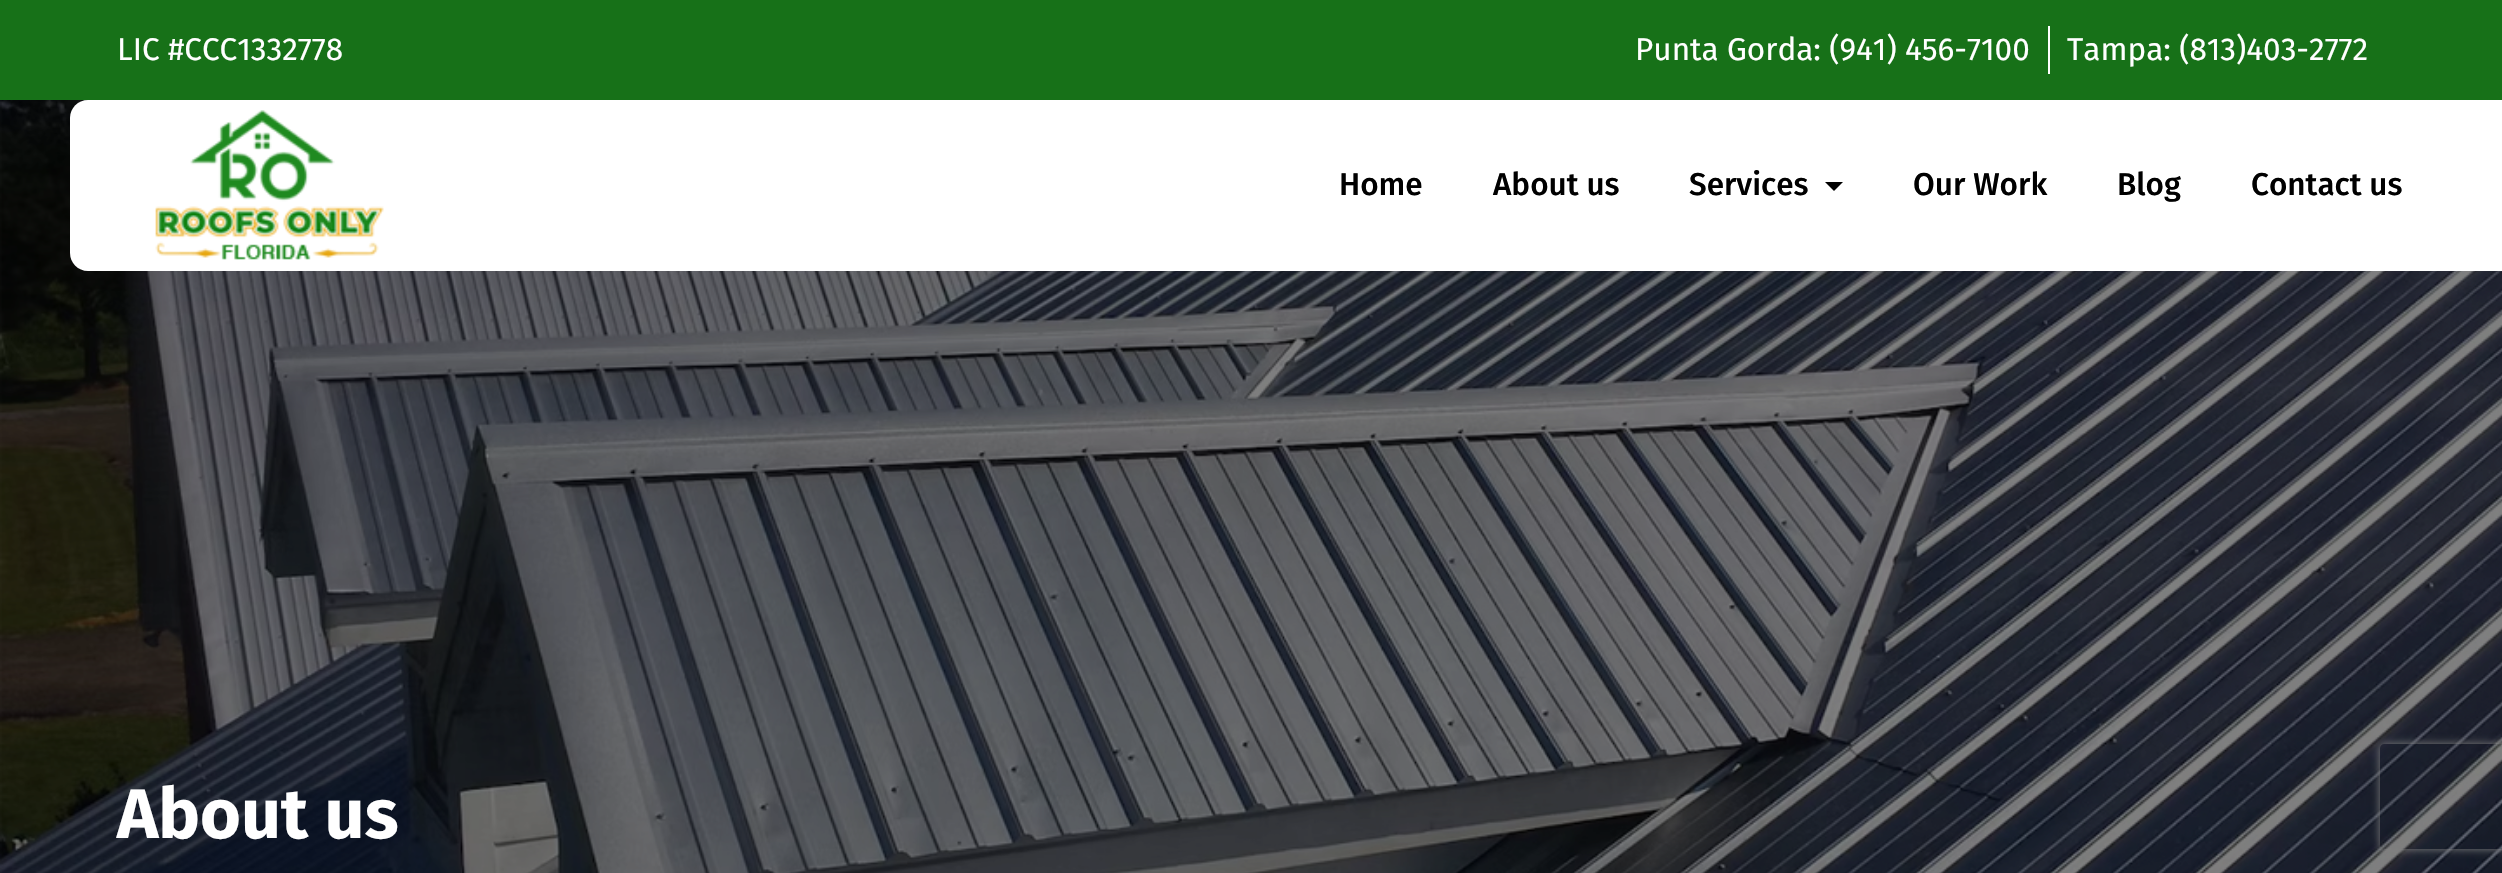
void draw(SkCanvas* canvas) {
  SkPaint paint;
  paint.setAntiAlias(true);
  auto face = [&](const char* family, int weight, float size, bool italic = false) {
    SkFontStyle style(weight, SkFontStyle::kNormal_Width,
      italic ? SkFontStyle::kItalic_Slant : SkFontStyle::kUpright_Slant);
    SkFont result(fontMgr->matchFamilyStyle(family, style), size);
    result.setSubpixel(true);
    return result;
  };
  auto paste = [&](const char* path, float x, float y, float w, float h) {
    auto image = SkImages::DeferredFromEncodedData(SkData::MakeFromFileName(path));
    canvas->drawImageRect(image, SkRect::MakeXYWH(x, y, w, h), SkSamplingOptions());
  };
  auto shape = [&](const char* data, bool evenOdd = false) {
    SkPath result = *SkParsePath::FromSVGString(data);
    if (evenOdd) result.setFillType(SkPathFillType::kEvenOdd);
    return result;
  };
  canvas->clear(0xffffffff);
  paint.setColor(0xff177118);
  canvas->drawRect(SkRect::MakeXYWH(0, 0, 2502, 100), paint);
  paint.setColor(0xffffffff);
  canvas->drawRect(SkRect::MakeXYWH(2048, 26, 2, 48), paint);
  paste("img/2.png", 0, 100, 2502, 773);
  canvas->drawPath(shape("M88 100H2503V271H88C78 271 70 263 70 253V118C70 108 78 100 88 100Z"), paint);
  paste("img/1.png", 155, 110, 229, 150);
  paint.setColor(0xff000000);
  canvas->drawPath(shape("M1825 182H1843L1834 191Z"), paint);
  canvas->save();
  canvas->clipPath(shape("M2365 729H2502V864H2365ZM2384 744H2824C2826 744 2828 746 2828 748V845C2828 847 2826 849 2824 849H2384C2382 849 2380 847 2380 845V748C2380 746 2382 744 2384 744Z", true), true);
  paint.setColor(0xff808080);
  paint.setMaskFilter(SkMaskFilter::MakeBlur(kNormal_SkBlurStyle, 4.5f));
  canvas->drawRoundRect(SkRect::MakeXYWH(2380, 744, 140, 105), 4, 4, paint);
  paint.setMaskFilter(nullptr);
  canvas->restore();
  auto f0 = face("Fira Sans", 400, 31.5f);
  paint.setColor(0xffffffff);
  {
    const struct { const char* s; float x, y; } items[] = {
      {"LIC #CCC1332778", 117, 60},
      {"Punta Gorda: (941) 456-7100", 1635, 60},
      {"Tampa: (813)403-2772", 2067, 60},
    };
    for (auto [s, x, y] : items) {
      canvas->drawString(s, x, y, f0, paint);
    }
  }
  auto f1 = face("Fira Sans", 500, 31.5f);
  paint.setColor(0xff000000);
  {
    const struct { const char* s; float x, y; } items[] = {
      {"Home", 1339, 195},
      {"About us", 1493, 195},
      {"Services", 1689, 195},
      {"Our Work", 1913, 195},
      {"Blog", 2117, 195},
      {"Contact us", 2251, 195},
    };
    for (auto [s, x, y] : items) {
      canvas->drawString(s, x, y, f1, paint);
    }
  }
  auto f2 = face("Fira Sans", 700, 70);
  paint.setColor(0xffffffff);
  canvas->drawString("About us", 117, 838, f2, paint);
}
